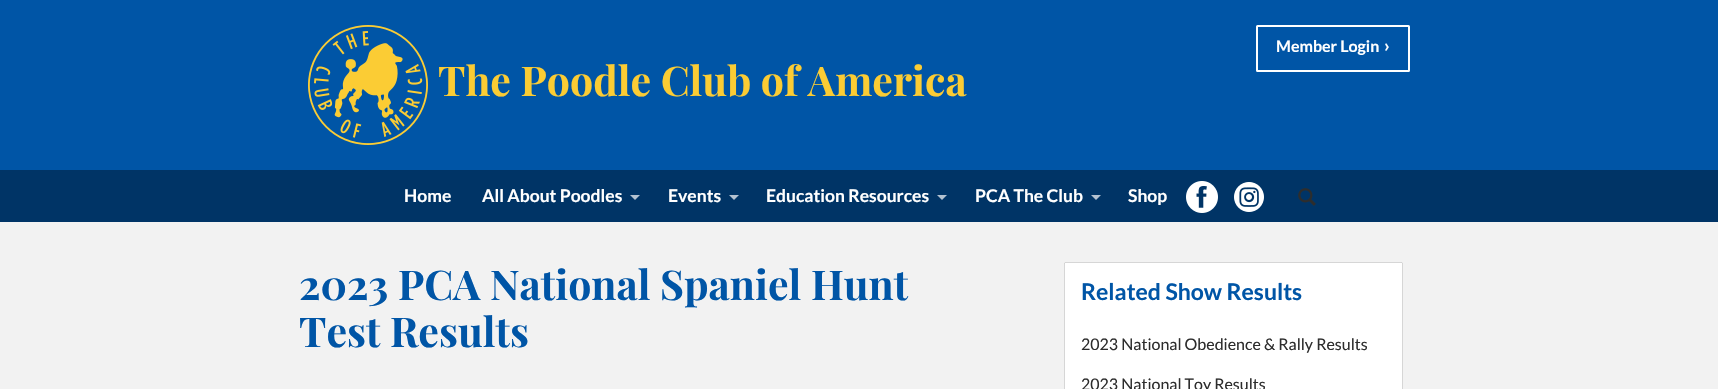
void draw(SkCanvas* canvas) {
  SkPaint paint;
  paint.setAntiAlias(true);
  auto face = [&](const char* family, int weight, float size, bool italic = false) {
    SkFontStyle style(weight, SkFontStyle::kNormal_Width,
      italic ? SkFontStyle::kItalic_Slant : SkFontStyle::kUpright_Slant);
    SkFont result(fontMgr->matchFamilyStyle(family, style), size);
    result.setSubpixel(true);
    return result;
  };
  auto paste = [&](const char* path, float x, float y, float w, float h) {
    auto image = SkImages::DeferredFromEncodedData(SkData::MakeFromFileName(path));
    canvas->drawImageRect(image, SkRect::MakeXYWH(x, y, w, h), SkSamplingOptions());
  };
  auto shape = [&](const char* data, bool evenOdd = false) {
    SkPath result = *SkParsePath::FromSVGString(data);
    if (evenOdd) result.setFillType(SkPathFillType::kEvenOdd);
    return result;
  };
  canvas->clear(0xfff2f2f2);
  paint.setColor(0xff0055a6);
  canvas->drawRect(SkRect::MakeXYWH(0, 0, 1718, 170), paint);
  paint.setStroke(true);
  paint.setStrokeWidth(2);
  paint.setColor(0xffffffff);
  canvas->drawRoundRect(SkRect::MakeXYWH(1257, 26, 152, 45), 0.5f, 0.5f, paint);
  paste("img/1.png", 308, 25, 120, 120);
  paint.setStroke(false);
  paint.setColor(0xff003466);
  canvas->drawRect(SkRect::MakeXYWH(0, 170, 1718, 52), paint);
  paint.setColor(0xffb3c2d1);
  canvas->drawPath(shape("M630 195H640L635 200Z"), paint);
  canvas->drawPath(shape("M729 195H739L734 200Z"), paint);
  canvas->drawPath(shape("M937 195H947L942 200Z"), paint);
  canvas->drawPath(shape("M1091 195H1101L1096 200Z"), paint);
  paste("img/2.png", 1186, 181, 32, 32);
  paste("img/3.png", 1234, 182, 30, 30);
  paste("img/4.png", 1298, 188, 18, 18);
  paint.setColor(0xffffffff);
  canvas->drawRoundRect(SkRect::MakeXYWH(1064, 262, 339, 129), 1.5f, 1.5f, paint);
  paint.setStroke(true);
  paint.setStrokeWidth(1);
  paint.setColor(0x33333333);
  canvas->drawRoundRect(SkRect::MakeXYWH(1064.5f, 262.5f, 338, 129), 1, 1, paint);
  auto f0 = face("Lato", 700, 16);
  paint.setStroke(false);
  paint.setColor(0xffffffff);
  canvas->drawString("Member Login", 1276, 52, f0, paint);
  auto f1 = face("Lato", 700, 18);
  canvas->drawString("›", 1384, 52, f1, paint);
  auto f2 = face("Playfair Display", 700, 41);
  paint.setColor(0xfffbcc34);
  canvas->drawString("The Poodle Club of America", 438, 96, f2, paint);
  auto f3 = face("Lato", 700, 17.5f);
  paint.setColor(0xffffffff);
  {
    const struct { const char* s; float x, y; } items[] = {
      {"Home", 404, 202},
      {"All About Poodles", 482, 202},
      {"Events", 668, 202},
      {"Education Resources", 766, 202},
      {"PCA The Club", 975, 202},
      {"Shop", 1128, 202},
    };
    for (auto [s, x, y] : items) {
      canvas->drawString(s, x, y, f3, paint);
    }
  }
  paint.setColor(0xff0055a6);
  canvas->drawString("2023 PCA National Spaniel Hunt", 299, 300, f2, paint);
  canvas->drawString("Test Results", 299, 347, f2, paint);
  auto f4 = face("Lato", 700, 23);
  canvas->drawString("Related Show Results", 1081, 300, f4, paint);
  auto f5 = face("Lato", 400, 16);
  paint.setColor(0xff2d2d2d);
  canvas->drawString("2023 National Obedience & Rally Results", 1081, 350, f5, paint);
  canvas->drawString("2023 National Toy Results", 1081, 390, f5, paint);
}
